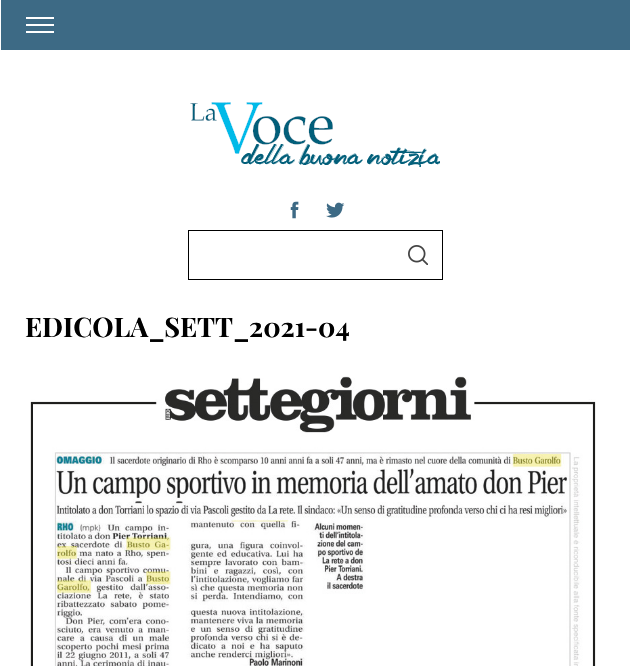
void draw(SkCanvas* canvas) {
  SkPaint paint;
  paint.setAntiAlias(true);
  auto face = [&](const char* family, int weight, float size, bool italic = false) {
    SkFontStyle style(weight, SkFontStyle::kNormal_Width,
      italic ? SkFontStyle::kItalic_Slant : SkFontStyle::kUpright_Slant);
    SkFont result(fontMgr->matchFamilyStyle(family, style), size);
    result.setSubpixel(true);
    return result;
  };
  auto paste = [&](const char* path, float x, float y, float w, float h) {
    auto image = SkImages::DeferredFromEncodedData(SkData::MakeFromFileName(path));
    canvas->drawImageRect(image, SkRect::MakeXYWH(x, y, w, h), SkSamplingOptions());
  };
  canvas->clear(0xffffffff);
  {
    const struct { float x, y, w, h; SkColor color; } items[] = {
      {1, 0, 629, 50, 0xff3d6a85},
      {26, 24, 28, 2, 0xffffffff},
      {26, 17, 28, 2, 0xffffffff},
      {26, 31, 28, 2, 0xffffffff},
    };
    for (auto [x, y, w, h, color] : items) {
      paint.setColor(color);
      canvas->drawRect(SkRect::MakeXYWH(x, y, w, h), paint);
    }
  }
  paste("img/1.png", 190, 102, 250, 66);
  paste("img/2.png", 290, 201, 9, 18);
  paste("img/3.png", 326, 202, 19, 16);
  paint.setStroke(true);
  paint.setStrokeWidth(1);
  paint.setColor(0xff000000);
  canvas->drawRect(SkRect::MakeXYWH(188.5f, 230.5f, 254, 49), paint);
  paste("img/4.png", 408, 245, 20, 20);
  paste("img/5.png", 30, 376, 566, 290);
  auto f0 = face("Playfair Display", 700, 27);
  paint.setStroke(false);
  canvas->drawString("EDICOLA_SETT_2021-04", 25, 337, f0, paint);
}
